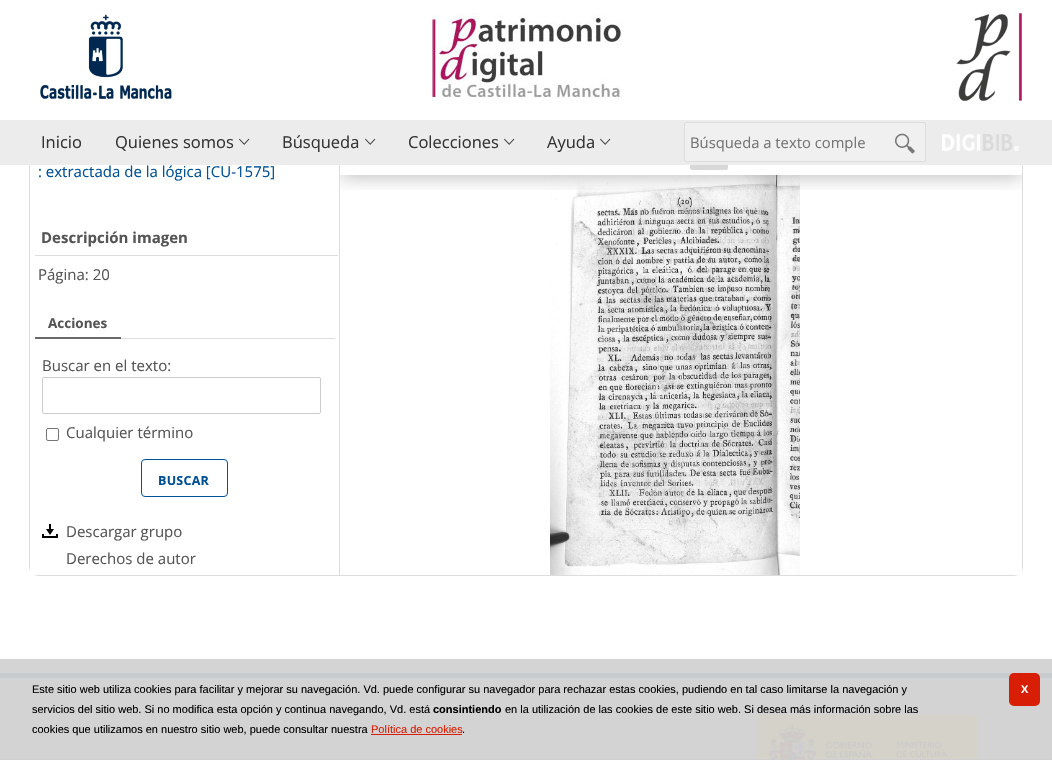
void draw(SkCanvas* canvas) {
  SkPaint paint;
  paint.setAntiAlias(true);
  auto face = [&](const char* family, int weight, float size, bool italic = false) {
    SkFontStyle style(weight, SkFontStyle::kNormal_Width,
      italic ? SkFontStyle::kItalic_Slant : SkFontStyle::kUpright_Slant);
    SkFont result(fontMgr->matchFamilyStyle(family, style), size);
    result.setSubpixel(true);
    return result;
  };
  auto writeSpaced = [&](const char* s, float x, float y, const SkFont& font, const SkPaint& ink, float letter, float word) {
    std::vector<SkGlyphID> glyphs(font.countText(s, strlen(s), SkTextEncoding::kUTF8));
    std::vector<float> xs(glyphs.size());
    font.textToGlyphs(s, strlen(s), SkTextEncoding::kUTF8, glyphs);
    font.getXPos(glyphs, xs, x);
    float extra = 0;
    for (size_t i = 0; i < glyphs.size(); i++) {
      xs[i] += extra;
      extra += letter + word * (glyphs[i] == font.unicharToGlyph(' '));
    }
    canvas->drawTextBlob(SkTextBlob::MakeFromPosHGlyphs(glyphs, xs, y, font), 0, 0, ink);
  };
  auto paste = [&](const char* path, float x, float y, float w, float h) {
    auto image = SkImages::DeferredFromEncodedData(SkData::MakeFromFileName(path));
    canvas->drawImageRect(image, SkRect::MakeXYWH(x, y, w, h), SkSamplingOptions());
  };
  auto shape = [&](const char* data, bool evenOdd = false) {
    SkPath result = *SkParsePath::FromSVGString(data);
    if (evenOdd) result.setFillType(SkPathFillType::kEvenOdd);
    return result;
  };
  canvas->clear(0xffffffff);
  paint.setColor(0xffd4d4d4);
  canvas->drawRect(SkRect::MakeXYWH(0, 659, 1052, 14), paint);
  paint.setStroke(true);
  paint.setStrokeWidth(1);
  paint.setColor(0xffdddddd);
  canvas->drawRoundRect(SkRect::MakeXYWH(29.5f, 77.5f, 993, 498), 8.5f, 8.5f, paint);
  paint.setStroke(false);
  canvas->drawRect(SkRect::MakeXYWH(339, 165, 1, 410), paint);
  paste("img/8.png", 550, 175, 250, 400);
  canvas->save();
  canvas->clipRect(SkRect::MakeXYWH(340, 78, 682, 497));
  canvas->clipRect(SkRect::MakeXYWH(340, 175, 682, 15));
  paint.setColor(0x4d000000);
  paint.setMaskFilter(SkMaskFilter::MakeBlur(kNormal_SkBlurStyle, 10));
  canvas->drawRect(SkRect::MakeXYWH(340, 78, 682, 97), paint);
  paint.setMaskFilter(nullptr);
  canvas->restore();
  paint.setColor(0xffffffff);
  canvas->drawRect(SkRect::MakeXYWH(29, 77, 994, 43), paint);
  paste("img/1.png", 431, 13, 191, 88);
  paste("img/2.png", 40, 14, 132, 85);
  paste("img/3.png", 956, 13, 66, 88);
  paint.setColor(0xffd8d8d8);
  canvas->drawRoundRect(SkRect::MakeXYWH(690, 127, 38, 43), 2, 2, paint);
  paint.setColor(0xffececec);
  canvas->drawRect(SkRect::MakeXYWH(0, 120, 1052, 45), paint);
  paste("img/4.png", 239, 138, 11, 7);
  paste("img/4.png", 365, 138, 11, 7);
  paste("img/4.png", 504, 138, 11, 7);
  paste("img/4.png", 600, 138, 11, 7);
  paint.setColor(0xfff0f0f0);
  canvas->drawRoundRect(SkRect::MakeXYWH(684.5f, 122.5f, 241, 39), 1.5f, 1.5f, paint);
  paint.setStroke(true);
  paint.setColor(0xffdddddd);
  canvas->drawRoundRect(SkRect::MakeXYWH(684.5f, 122.5f, 241, 39), 1.5f, 1.5f, paint);
  paste("img/5.png", 895, 133, 20, 21);
  paste("img/6.png", 942, 134, 77, 17);
  paint.setStroke(false);
  {
    const struct { float x, y, w, h; SkColor color; } items[] = {
      {30, 568, 7, 7, 0xffffffff},
      {35, 255, 303, 1, 0xffdddddd},
      {121, 338, 214, 1, 0xffdddddd},
      {35, 337, 86, 2, 0xff696969},
    };
    for (auto [x, y, w, h, color] : items) {
      paint.setColor(color);
      canvas->drawRect(SkRect::MakeXYWH(x, y, w, h), paint);
    }
  }
  paint.setStroke(true);
  paint.setColor(0xffcccccc);
  canvas->drawRoundRect(SkRect::MakeXYWH(42.5f, 377.5f, 278, 36), 1.5f, 1.5f, paint);
  paint.setColor(0xff767676);
  canvas->drawRoundRect(SkRect::MakeXYWH(46.5f, 428.5f, 12, 12), 1.5f, 1.5f, paint);
  paint.setColor(0xff005196);
  canvas->drawRoundRect(SkRect::MakeXYWH(141.5f, 459.5f, 86, 37), 3.5f, 3.5f, paint);
  paste("img/7.png", 42, 524, 16, 14);
  paint.setStroke(false);
  {
    const struct { float x, y, w, h; SkColor color; } items[] = {
      {1015, 568, 7, 7, 0xffffffff},
      {0, 678, 1052, 82, 0xffd3d3d3},
      {0, 673, 1052, 5, 0xffc8cccf},
    };
    for (auto [x, y, w, h, color] : items) {
      paint.setColor(color);
      canvas->drawRect(SkRect::MakeXYWH(x, y, w, h), paint);
    }
  }
  paste("img/9.png", 757, 715, 220, 45);
  paint.setStroke(true);
  paint.setColor(0xffcccccc);
  paint.setPathEffect(SkDashPathEffect::Make({{1, 1}}, 0));
  canvas->drawPath(shape("M0 759.5H1052"), paint);
  paint.setPathEffect(nullptr);
  paint.setStroke(false);
  paint.setColor(0xffd81e05);
  canvas->drawRect(SkRect::MakeXYWH(371, 734, 91, 1), paint);
  canvas->drawRoundRect(SkRect::MakeXYWH(1009, 673, 31, 33), 5, 5, paint);
  auto f0 = face("Open Sans", 400, 16.5f);
  paint.setColor(0xff333333);
  {
    const struct { const char* s; float x, y; } items[] = {
      {"Inicio", 41, 148},
      {"Quienes somos", 115, 148},
      {"Búsqueda", 282, 148},
      {"Colecciones", 408, 148},
      {"Ayuda", 547, 148},
    };
    for (auto [s, x, y] : items) {
      canvas->drawString(s, x, y, f0, paint);
    }
  }
  auto f1 = face("Open Sans", 400, 14.8f);
  paint.setColor(0xff757575);
  canvas->drawString("Búsqueda a texto comple", 690, 148, f1, paint);
  auto f2 = face("Open Sans", 400, 15);
  paint.setColor(0xff005196);
  canvas->drawString(": extractada de la lógica [CU-1575]", 38, 177, f2, paint);
  auto f3 = face("Open Sans", 700, 15);
  paint.setColor(0xff555555);
  canvas->drawString("Descripción imagen", 41, 243, f3, paint);
  canvas->drawString("Página: 20", 38, 280, f2, paint);
  auto f4 = face("Open Sans", 700, 13.5f);
  canvas->drawString("Acciones", 48, 328, f4, paint);
  canvas->drawString("Buscar en el texto:", 42, 371, f2, paint);
  canvas->drawString("Cualquier término", 66, 438, f2, paint);
  auto f5 = face("Open Sans", 700, 12.5f);
  paint.setColor(0xff005196);
  writeSpaced("BUSCAR", 158, 485, f5, paint, 0.25f, 0);
  paint.setColor(0xff555555);
  canvas->drawString("Descargar grupo", 66, 537, f2, paint);
  canvas->drawString("Derechos de autor", 66, 564, f2, paint);
  auto f6 = face("Liberation Sans", 400, 11);
  paint.setColor(0xff000000);
  canvas->drawString("Este sitio web utiliza cookies para facilitar y mejorar su navegación. Vd. puede configurar su navegador para rechazar estas cookies, pudiendo en tal caso limitarse la navegación y", 32, 693, f6, paint);
  canvas->drawString("servicios del sitio web. Si no modifica esta opción y continua navegando, Vd. está", 32, 713, f6, paint);
  auto f7 = face("Liberation Sans", 700, 11);
  canvas->drawString("consintiendo", 433, 713, f7, paint);
  canvas->drawString("en la utilización de las cookies de este sitio web. Si desea más información sobre las", 505, 713, f6, paint);
  canvas->drawString("cookies que utilizamos en nuestro sitio web, puede consultar nuestra", 32, 733, f6, paint);
  paint.setColor(0xffd81e05);
  canvas->drawString("Política de cookies", 371, 733, f6, paint);
  paint.setColor(0xff000000);
  canvas->drawString(".", 462, 733, f6, paint);
  paint.setColor(0xffffffff);
  writeSpaced("X", 1021, 693, f7, paint, -1, 0);
}
